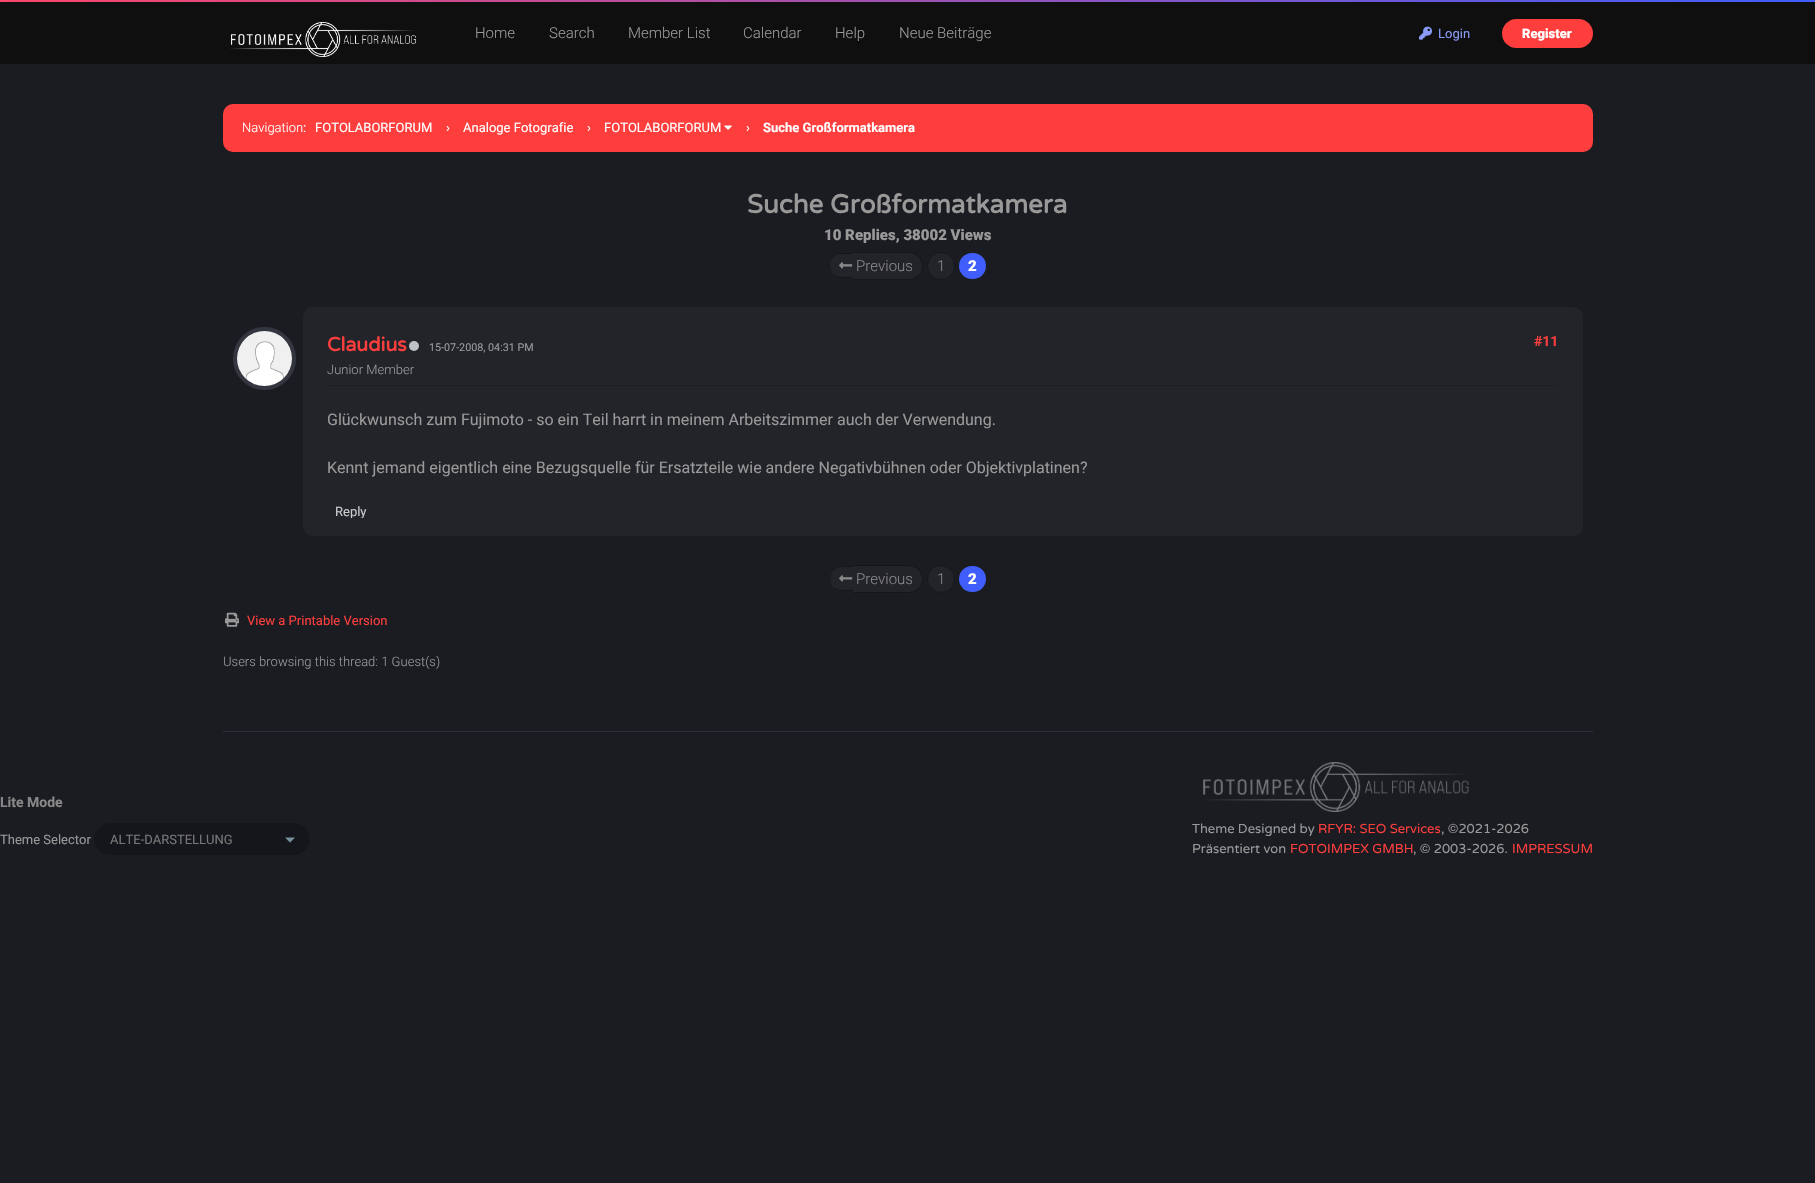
void draw(SkCanvas* canvas) {
  SkPaint paint;
  paint.setAntiAlias(true);
  auto face = [&](const char* family, int weight, float size, bool italic = false) {
    SkFontStyle style(weight, SkFontStyle::kNormal_Width,
      italic ? SkFontStyle::kItalic_Slant : SkFontStyle::kUpright_Slant);
    SkFont result(fontMgr->matchFamilyStyle(family, style), size);
    result.setSubpixel(true);
    return result;
  };
  auto paste = [&](const char* path, float x, float y, float w, float h) {
    auto image = SkImages::DeferredFromEncodedData(SkData::MakeFromFileName(path));
    canvas->drawImageRect(image, SkRect::MakeXYWH(x, y, w, h), SkSamplingOptions());
  };
  auto shape = [&](const char* data, bool evenOdd = false) {
    SkPath result = *SkParsePath::FromSVGString(data);
    if (evenOdd) result.setFillType(SkPathFillType::kEvenOdd);
    return result;
  };
  canvas->clear(0xff1b1c22);
  {
    const SkColor colors[] = {0xfffc466b, 0xff3f5efb};
    const float stops[] = {0, 1};
    const SkPoint ends[] = {{0, 1}, {1815, 1}};
    paint.setShader(SkGradientShader::MakeLinear(ends, colors, stops, 2, SkTileMode::kClamp));
    paint.setAlpha(255);
  }
  canvas->drawRect(SkRect::MakeXYWH(0, 0, 1815, 2), paint);
  paint.setShader(nullptr);
  paint.setColor(0xff0f0f10);
  canvas->drawRect(SkRect::MakeXYWH(0, 2, 1815, 62), paint);
  paste("img/1.png", 230, 22, 186, 35);
  paste("img/2.png", 1419, 26, 13, 14);
  paint.setColor(0xfffe3e3d);
  canvas->drawRoundRect(SkRect::MakeXYWH(1502, 19, 91, 29), 14.5f, 14.5f, paint);
  canvas->drawRoundRect(SkRect::MakeXYWH(223, 104, 1370, 48), 10, 10, paint);
  paste("img/3.png", 724, 125, 8, 5);
  paint.setColor(0xff23242a);
  canvas->drawPath(shape("M841 253H853V278H841C834.5 278 829 272.5 829 266V265C829 258.5 834.5 253 841 253Z"), paint);
  paint.setColor(0xff15161b);
  canvas->drawPath(shape("M841 253H853V278C848.5 278 840.5 279 836.5 277C824.5 272 828 253 841 253ZM841 254H853V277C848.5 277 840.5 277.5 836.5 276C826 271.5 829 254 841 254Z", true), paint);
  paint.setColor(0xff23242a);
  canvas->drawPath(shape("M853 252H909C916.5 252 923 258.5 923 266C923 273.5 916.5 280 909 280H853Z"), paint);
  paint.setColor(0xff15161b);
  canvas->drawPath(shape("M853 252H909C917 252 923 258 923 266C923 274 917 280 909 280H853ZM853 253H909C916 253 922 259 922 266C922 273 916 279 909 279H853Z", true), paint);
  paste("img/4.png", 839, 262, 14, 7);
  paint.setColor(0xff23242a);
  canvas->drawCircle(941, 266, 13.5f, paint);
  paint.setStroke(true);
  paint.setStrokeWidth(1);
  paint.setColor(0xff15161b);
  canvas->drawCircle(941, 266, 13.5f, paint);
  paint.setStroke(false);
  paint.setColor(0xff3f5efb);
  canvas->drawRoundRect(SkRect::MakeXYWH(959, 253, 27, 26), 13, 13, paint);
  paint.setStroke(true);
  paint.setStrokeWidth(4);
  paint.setColor(0xff34363f);
  canvas->drawCircle(264.5f, 358.5f, 29.5f, paint);
  paste("img/5.png", 237, 331, 55, 55);
  paint.setStroke(false);
  paint.setColor(0xff23242a);
  canvas->drawRoundRect(SkRect::MakeXYWH(303, 307, 1280, 229), 10, 10, paint);
  paint.setColor(0xffbdc3c7);
  canvas->drawCircle(414, 346, 5, paint);
  paint.setColor(0xff1e1f24);
  canvas->drawRect(SkRect::MakeXYWH(327, 385, 1232, 1), paint);
  paint.setColor(0xff23242a);
  canvas->drawPath(shape("M841 566H853V591H841C834.5 591 829 585.5 829 579V578C829 571.5 834.5 566 841 566Z"), paint);
  paint.setColor(0xff15161b);
  canvas->drawPath(shape("M841 566H853V591C848.5 591 840.5 592 836.5 590C824.5 585 828 566 841 566ZM841 567H853V590C848.5 590 840.5 590.5 836.5 589C826 584.5 829 567 841 567Z", true), paint);
  paint.setColor(0xff23242a);
  canvas->drawPath(shape("M853 565H909C916.5 565 923 571.5 923 579C923 586.5 916.5 593 909 593H853Z"), paint);
  paint.setColor(0xff15161b);
  canvas->drawPath(shape("M853 565H909C917 565 923 571 923 579C923 587 917 593 909 593H853ZM853 566H909C916 566 922 572 922 579C922 586 916 592 909 592H853Z", true), paint);
  paste("img/4.png", 839, 575, 14, 7);
  paint.setColor(0xff23242a);
  canvas->drawCircle(941, 579, 13.5f, paint);
  paint.setStroke(true);
  paint.setStrokeWidth(1);
  paint.setColor(0xff15161b);
  canvas->drawCircle(941, 579, 13.5f, paint);
  paint.setStroke(false);
  paint.setColor(0xff3f5efb);
  canvas->drawRoundRect(SkRect::MakeXYWH(959, 566, 27, 26), 13, 13, paint);
  paste("img/6.png", 225, 612, 14, 15);
  paint.setColor(0xff15161b);
  canvas->drawRoundRect(SkRect::MakeXYWH(94, 823, 216, 32), 16, 16, paint);
  paste("img/7.png", 285, 837, 10, 6);
  paint.setColor(0xff2d2e38);
  canvas->drawRect(SkRect::MakeXYWH(223, 731, 1370, 1), paint);
  paste("img/8.png", 1203, 762, 266, 50);
  auto f0 = face("Roboto", 300, 15);
  paint.setColor(0xff999999);
  {
    const struct { const char* s; float x, y; } items[] = {
      {"Home", 475, 38},
      {"Search", 549, 38},
      {"Member List", 628, 38},
      {"Calendar", 743, 38},
      {"Help", 835, 38},
      {"Neue Beiträge", 899, 38},
    };
    for (auto [s, x, y] : items) {
      canvas->drawString(s, x, y, f0, paint);
    }
  }
  auto f1 = face("Roboto", 400, 13);
  paint.setColor(0xff899bf7);
  canvas->drawString("Login", 1438, 38, f1, paint);
  auto f2 = face("Roboto", 900, 13);
  paint.setColor(0xffffffff);
  canvas->drawString("Register", 1522, 38, f2, paint);
  auto f3 = face("Roboto", 300, 13);
  canvas->drawString("Navigation", 242, 132, f3, paint);
  {
    const struct { const char* s; float x, y; } items[] = {
      {":", 303, 132},
      {"FOTOLABORFORUM", 315, 132},
      {"›", 446, 132},
      {"Analoge Fotografie", 463, 132},
      {"›", 587, 132},
      {"FOTOLABORFORUM", 604, 132},
      {"›", 746, 132},
    };
    for (auto [s, x, y] : items) {
      canvas->drawString(s, x, y, f1, paint);
    }
  }
  auto f4 = face("Roboto", 700, 13);
  canvas->drawString("Suche Großformatkamera", 763, 132, f4, paint);
  auto f5 = face("Varela Round", 700, 26);
  paint.setColor(0xff999999);
  canvas->drawString("Suche Großformatkamera", 747, 213, f5, paint);
  auto f6 = face("Roboto", 900, 15);
  canvas->drawString("10 Replies, 38002 Views", 824, 240, f6, paint);
  paint.setColor(0xff888888);
  canvas->drawString("Previous", 856, 271, f0, paint);
  canvas->drawString("1", 937, 271, f0, paint);
  paint.setColor(0xffffffff);
  canvas->drawString("2", 968, 271, f6, paint);
  auto f7 = face("Varela Round", 700, 19.5f);
  paint.setColor(0xfffe3e3d);
  canvas->drawString("Claudius", 327, 351, f7, paint);
  auto f8 = face("Roboto", 400, 10.75f);
  paint.setColor(0xff999999);
  canvas->drawString("15-07-2008, 04:31 PM", 429, 351, f8, paint);
  canvas->drawString("Junior Member", 327, 374, f3, paint);
  auto f9 = face("Roboto", 700, 14);
  paint.setColor(0xfffe3e3d);
  canvas->drawString("#11", 1534, 346, f9, paint);
  auto f10 = face("Roboto", 400, 16);
  paint.setColor(0xff999999);
  canvas->drawString("Glückwunsch zum Fujimoto - so ein Teil harrt in meinem Arbeitszimmer auch der Verwendung.", 327, 425, f10, paint);
  canvas->drawString("Kennt jemand eigentlich eine Bezugsquelle für Ersatzteile wie andere Negativbühnen oder Objektivplatinen?", 327, 473, f10, paint);
  canvas->save();
  canvas->clipRect(SkRect::MakeXYWH(321, 502, 59, 16));
  paint.setColor(0xffcccccc);
  canvas->drawString("Reply", 335, 516, f1, paint);
  canvas->restore();
  paint.setColor(0xff888888);
  canvas->drawString("Previous", 856, 584, f0, paint);
  canvas->drawString("1", 937, 584, f0, paint);
  paint.setColor(0xffffffff);
  canvas->drawString("2", 968, 584, f6, paint);
  paint.setColor(0xfffe3e3d);
  canvas->drawString("View a Printable Version", 247, 625, f1, paint);
  paint.setColor(0xff999999);
  canvas->drawString("Users browsing this thread: 1 Guest(s)", 223, 666, f3, paint);
  paint.setColor(0xff888888);
  canvas->drawString("Lite Mode", 0, 807, f9, paint);
  paint.setColor(0xff999999);
  canvas->drawString("Theme Selector", 0, 844, f1, paint);
  paint.setColor(0xff777777);
  canvas->drawString("ALTE-DARSTELLUNG", 110, 844, f1, paint);
  auto f11 = face("Varela Round", 400, 13);
  paint.setColor(0xff999999);
  canvas->drawString("Theme Designed by", 1192, 833, f11, paint);
  paint.setColor(0xfffe3e3d);
  canvas->drawString("RFYR: SEO Services", 1318, 833, f11, paint);
  paint.setColor(0xff999999);
  canvas->drawString(", ©2021-2026", 1441, 833, f11, paint);
  canvas->drawString("Präsentiert von", 1192, 853, f11, paint);
  paint.setColor(0xfffe3e3d);
  canvas->drawString("FOTOIMPEX GMBH", 1290, 853, f11, paint);
  paint.setColor(0xff999999);
  canvas->drawString(", © 2003-2026.", 1413, 853, f11, paint);
  paint.setColor(0xfffe3e3d);
  canvas->drawString("IMPRESSUM", 1512, 853, f11, paint);
}
